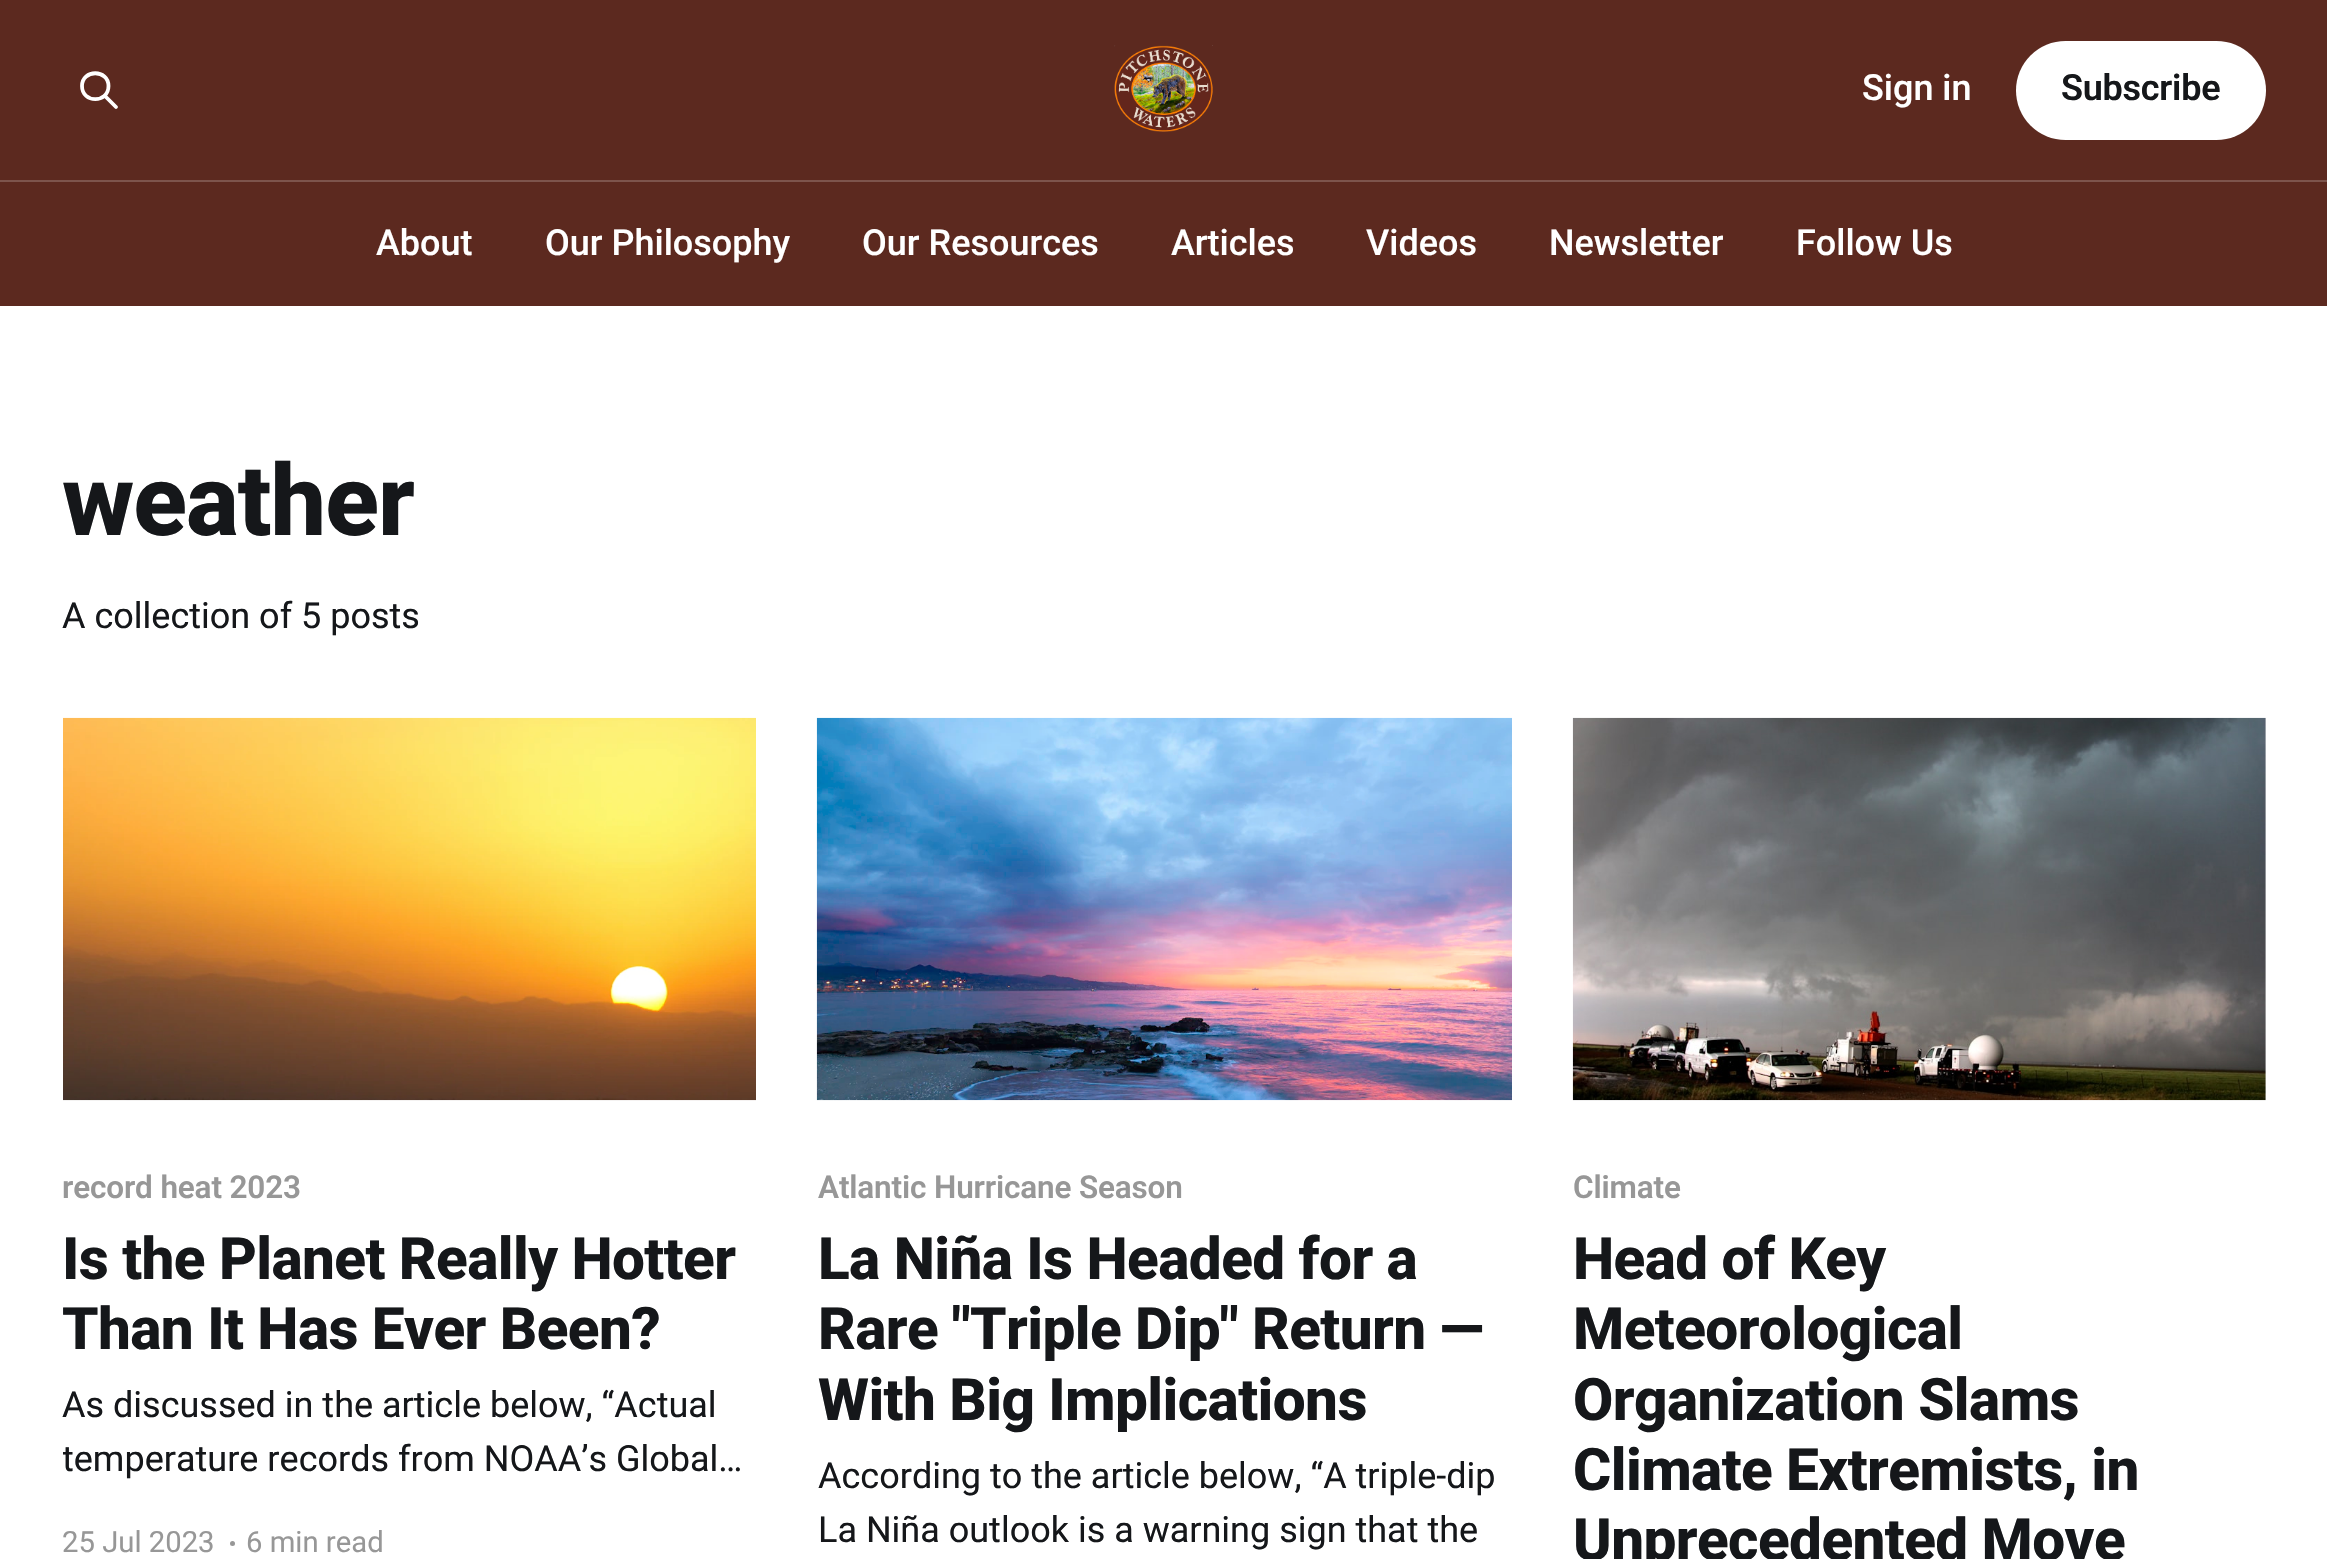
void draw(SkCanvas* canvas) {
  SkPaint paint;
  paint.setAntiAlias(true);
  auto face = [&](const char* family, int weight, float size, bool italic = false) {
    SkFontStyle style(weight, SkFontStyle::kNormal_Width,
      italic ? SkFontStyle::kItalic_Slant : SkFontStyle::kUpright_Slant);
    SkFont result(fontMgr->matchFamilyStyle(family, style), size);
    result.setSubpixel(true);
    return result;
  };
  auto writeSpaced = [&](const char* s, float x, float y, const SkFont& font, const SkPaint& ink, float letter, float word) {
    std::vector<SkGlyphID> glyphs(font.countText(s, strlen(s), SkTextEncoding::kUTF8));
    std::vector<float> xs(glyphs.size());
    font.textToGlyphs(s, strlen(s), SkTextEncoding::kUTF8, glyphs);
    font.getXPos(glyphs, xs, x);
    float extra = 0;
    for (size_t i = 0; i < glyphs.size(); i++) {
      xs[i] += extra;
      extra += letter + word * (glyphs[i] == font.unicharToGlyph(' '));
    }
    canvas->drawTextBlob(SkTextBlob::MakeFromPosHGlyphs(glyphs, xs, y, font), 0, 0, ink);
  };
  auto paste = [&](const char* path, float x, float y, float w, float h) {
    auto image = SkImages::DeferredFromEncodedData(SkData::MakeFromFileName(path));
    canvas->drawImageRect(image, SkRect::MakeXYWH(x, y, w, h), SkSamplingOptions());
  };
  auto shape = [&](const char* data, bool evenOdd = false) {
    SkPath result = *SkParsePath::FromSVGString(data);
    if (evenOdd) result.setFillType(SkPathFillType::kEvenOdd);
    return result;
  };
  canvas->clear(0xffffffff);
  paint.setColor(0xff5c291f);
  canvas->drawRect(SkRect::MakeXYWH(0, 0, 2327, 306), paint);
  paste("img/1.png", 1114, 45, 99, 87);
  paint.setStroke(true);
  paint.setStrokeWidth(3.8f);
  paint.setStrokeCap(SkPaint::kRound_Cap);
  paint.setStrokeJoin(SkPaint::kRound_Join);
  paint.setColor(0xffffffff);
  canvas->drawPath(shape("M116 107L104.5 95.5M108.5 86C108.5 103.5 82 103.5 82 86C82 69 108.5 69 108.5 86Z"), paint);
  paint.setStroke(false);
  canvas->drawRoundRect(SkRect::MakeXYWH(2016, 41, 250, 99), 49.5f, 49.5f, paint);
  paint.setColor(0xff7d544c);
  canvas->drawRect(SkRect::MakeXYWH(0, 180, 2327, 2), paint);
  paste("img/2.png", 63, 717, 693, 384);
  paint.setColor(0xff979797);
  canvas->drawCircle(232.5f, 1543.5f, 2.5f, paint);
  paste("img/3.png", 816, 717, 696, 384);
  paint.setColor(0xfff1f1f1);
  canvas->drawRect(SkRect::MakeXYWH(2265, 718, 1, 382), paint);
  paste("img/4.png", 1572, 717, 694, 384);
  auto f0 = face("Roboto", 500, 36);
  paint.setColor(0xffffffff);
  canvas->drawString("Sign in", 1862, 100, f0, paint);
  auto f1 = face("Roboto", 600, 36);
  paint.setColor(0xff15171a);
  writeSpaced("Subscribe", 2061, 100, f1, paint, -0.25f, 0);
  paint.setColor(0xffffffff);
  {
    const struct { const char* s; float x, y; } items[] = {
      {"About", 376, 255},
      {"Our Philosophy", 545, 255},
      {"Our Resources", 862, 255},
      {"Articles", 1171, 255},
      {"Videos", 1366, 255},
      {"Newsletter", 1549, 255},
      {"Follow Us", 1796, 255},
    };
    for (auto [s, x, y] : items) {
      canvas->drawString(s, x, y, f0, paint);
    }
  }
  auto f2 = face("Roboto", 800, 99);
  paint.setColor(0xff15171a);
  writeSpaced("weather", 62, 535, f2, paint, -1, 0);
  auto f3 = face("Roboto", 400, 36);
  canvas->drawString("A collection of 5 posts", 62, 628, f3, paint);
  auto f4 = face("Roboto", 600, 31.5f);
  paint.setColor(0xff979797);
  writeSpaced("record heat 2023", 62, 1198, f4, paint, -0.15f, 0);
  auto f5 = face("Roboto", 800, 58.5f);
  paint.setColor(0xff15171a);
  writeSpaced("Is the Planet Really Hotter", 62, 1279, f5, paint, -0.6f, 0);
  writeSpaced("Than It Has Ever Been?", 62, 1349, f5, paint, -0.6f, 0);
  canvas->drawString("As discussed in the article below, “Actual", 62, 1417, f3, paint);
  canvas->save();
  canvas->clipRect(SkRect::MakeXYWH(63, 1379, 693, 108));
  canvas->drawString("temperature records from NOAA’s Global…", 62, 1471, f3, paint);
  canvas->restore();
  auto f6 = face("Roboto", 400, 29.25f);
  paint.setColor(0xff979797);
  canvas->drawString("25 Jul 2023", 62, 1552, f6, paint);
  canvas->drawString("6 min read", 246, 1552, f6, paint);
  writeSpaced("Atlantic Hurricane Season", 818, 1198, f4, paint, -0.15f, 0);
  paint.setColor(0xff15171a);
  {
    const struct { const char* s; float x, y; } items[] = {
      {"La Niña Is Headed for a", 818, 1279},
      {"Rare \"Triple Dip\" Return —", 818, 1349},
      {"With Big Implications", 818, 1420},
    };
    for (auto [s, x, y] : items) {
      writeSpaced(s, x, y, f5, paint, -0.6f, 0);
    }
  }
  canvas->drawString("According to the article below, “A triple-dip", 818, 1488, f3, paint);
  canvas->drawString("La Niña outlook is a warning sign that the", 818, 1542, f3, paint);
  paint.setColor(0xff979797);
  writeSpaced("Climate", 1573, 1198, f4, paint, -0.15f, 0);
  paint.setColor(0xff15171a);
  {
    const struct { const char* s; float x, y; } items[] = {
      {"Head of Key", 1573, 1279},
      {"Meteorological", 1573, 1349},
      {"Organization Slams", 1573, 1420},
      {"Climate Extremists, in", 1573, 1490},
      {"Unprecedented Move", 1573, 1560},
    };
    for (auto [s, x, y] : items) {
      writeSpaced(s, x, y, f5, paint, -0.6f, 0);
    }
  }
}
